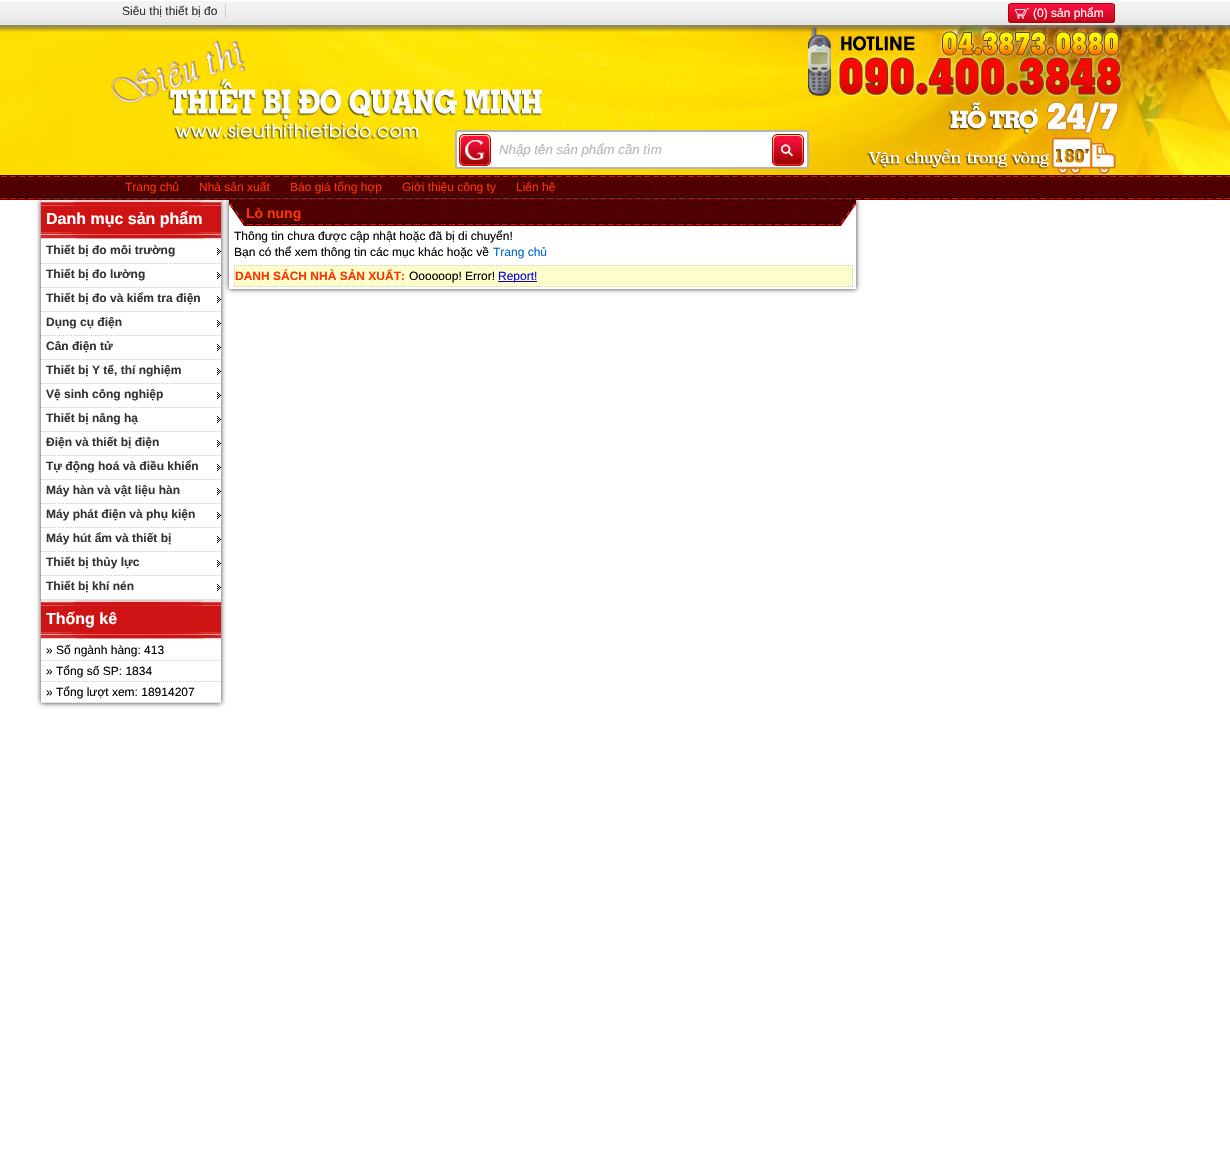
void draw(SkCanvas* canvas) {
  SkPaint paint;
  paint.setAntiAlias(true);
  auto face = [&](const char* family, int weight, float size, bool italic = false) {
    SkFontStyle style(weight, SkFontStyle::kNormal_Width,
      italic ? SkFontStyle::kItalic_Slant : SkFontStyle::kUpright_Slant);
    SkFont result(fontMgr->matchFamilyStyle(family, style), size);
    result.setSubpixel(true);
    return result;
  };
  auto paste = [&](const char* path, float x, float y, float w, float h) {
    auto image = SkImages::DeferredFromEncodedData(SkData::MakeFromFileName(path));
    canvas->drawImageRect(image, SkRect::MakeXYWH(x, y, w, h), SkSamplingOptions());
  };
  auto shape = [&](const char* data, bool evenOdd = false) {
    SkPath result = *SkParsePath::FromSVGString(data);
    if (evenOdd) result.setFillType(SkPathFillType::kEvenOdd);
    return result;
  };
  canvas->clear(0xffffffff);
  paste("img/1.png", 0, 1, 1230, 24);
  paint.setColor(0xffcccccc);
  canvas->drawRect(SkRect::MakeXYWH(225, 4, 1, 14), paint);
  paste("img/2.png", 1008, 4, 107, 19);
  paint.setStroke(true);
  paint.setStrokeWidth(1);
  paint.setColor(0xffb10400);
  canvas->drawRoundRect(SkRect::MakeXYWH(1008.5f, 3.5f, 106, 19), 2.5f, 2.5f, paint);
  paste("img/3.png", 1014, 8, 16, 11);
  paste("img/4.png", 0, 25, 1230, 150);
  paste("img/5.png", 0, 25, 1230, 7);
  paste("img/6.png", 107, 35, 438, 115);
  paint.setStroke(false);
  paint.setColor(0xffffffff);
  canvas->drawRoundRect(SkRect::MakeXYWH(456, 131, 352, 37), 2, 2, paint);
  paint.setStroke(true);
  paint.setStrokeWidth(2);
  paint.setColor(0xffb5b5b5);
  canvas->drawRoundRect(SkRect::MakeXYWH(456, 131, 352, 37), 2, 2, paint);
  paste("img/7.png", 459, 134, 32, 32);
  paste("img/8.png", 772, 134, 32, 32);
  paste("img/9.png", 0, 175, 1230, 25);
  canvas->save();
  canvas->clipPath(shape("M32 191H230V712H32ZM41 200H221V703H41Z", true), true);
  paint.setStroke(false);
  paint.setColor(0xff333333);
  paint.setMaskFilter(SkMaskFilter::MakeBlur(kNormal_SkBlurStyle, 2.5f));
  canvas->drawRect(SkRect::MakeXYWH(41, 200, 180, 503), paint);
  paint.setMaskFilter(nullptr);
  canvas->restore();
  paste("img/10.png", 41, 200, 180, 39);
  canvas->save();
  canvas->clipPath(shape("M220 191H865V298H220ZM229 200H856V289H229Z", true), true);
  paint.setMaskFilter(SkMaskFilter::MakeBlur(kNormal_SkBlurStyle, 2.5f));
  canvas->drawRect(SkRect::MakeXYWH(229, 200, 627, 89), paint);
  paint.setMaskFilter(nullptr);
  canvas->restore();
  paste("img/11.png", 217, 248, 4, 7);
  paint.setStroke(true);
  paint.setStrokeWidth(1);
  paint.setColor(0xffcccccc);
  paint.setPathEffect(SkDashPathEffect::Make({{1, 1}}, 0));
  canvas->drawPath(shape("M41 263.5H221"), paint);
  paint.setPathEffect(nullptr);
  paste("img/11.png", 217, 272, 4, 7);
  paint.setPathEffect(SkDashPathEffect::Make({{1, 1}}, 0));
  canvas->drawPath(shape("M41 287.5H221"), paint);
  paint.setPathEffect(nullptr);
  paste("img/11.png", 217, 296, 4, 7);
  paint.setPathEffect(SkDashPathEffect::Make({{1, 1}}, 0));
  canvas->drawPath(shape("M41 311.5H221"), paint);
  paint.setPathEffect(nullptr);
  paste("img/11.png", 217, 320, 4, 7);
  paint.setPathEffect(SkDashPathEffect::Make({{1, 1}}, 0));
  canvas->drawPath(shape("M41 335.5H221"), paint);
  paint.setPathEffect(nullptr);
  paste("img/11.png", 217, 344, 4, 7);
  paint.setPathEffect(SkDashPathEffect::Make({{1, 1}}, 0));
  canvas->drawPath(shape("M41 359.5H221"), paint);
  paint.setPathEffect(nullptr);
  paste("img/11.png", 217, 368, 4, 7);
  paint.setPathEffect(SkDashPathEffect::Make({{1, 1}}, 0));
  canvas->drawPath(shape("M41 383.5H221"), paint);
  paint.setPathEffect(nullptr);
  paste("img/11.png", 217, 392, 4, 7);
  paint.setPathEffect(SkDashPathEffect::Make({{1, 1}}, 0));
  canvas->drawPath(shape("M41 407.5H221"), paint);
  paint.setPathEffect(nullptr);
  paste("img/11.png", 217, 416, 4, 7);
  paint.setPathEffect(SkDashPathEffect::Make({{1, 1}}, 0));
  canvas->drawPath(shape("M41 431.5H221"), paint);
  paint.setPathEffect(nullptr);
  paste("img/11.png", 217, 440, 4, 7);
  paint.setPathEffect(SkDashPathEffect::Make({{1, 1}}, 0));
  canvas->drawPath(shape("M41 455.5H221"), paint);
  paint.setPathEffect(nullptr);
  paste("img/11.png", 217, 464, 4, 7);
  paint.setPathEffect(SkDashPathEffect::Make({{1, 1}}, 0));
  canvas->drawPath(shape("M41 479.5H221"), paint);
  paint.setPathEffect(nullptr);
  paste("img/11.png", 217, 488, 4, 7);
  paint.setPathEffect(SkDashPathEffect::Make({{1, 1}}, 0));
  canvas->drawPath(shape("M41 503.5H221"), paint);
  paint.setPathEffect(nullptr);
  paste("img/11.png", 217, 512, 4, 7);
  paint.setPathEffect(SkDashPathEffect::Make({{1, 1}}, 0));
  canvas->drawPath(shape("M41 527.5H221"), paint);
  paint.setPathEffect(nullptr);
  paste("img/11.png", 217, 536, 4, 7);
  paint.setPathEffect(SkDashPathEffect::Make({{1, 1}}, 0));
  canvas->drawPath(shape("M41 551.5H221"), paint);
  paint.setPathEffect(nullptr);
  paste("img/11.png", 217, 560, 4, 7);
  paint.setPathEffect(SkDashPathEffect::Make({{1, 1}}, 0));
  canvas->drawPath(shape("M41 575.5H221"), paint);
  paint.setPathEffect(nullptr);
  paste("img/11.png", 217, 584, 4, 7);
  paint.setPathEffect(SkDashPathEffect::Make({{1, 1}}, 0));
  canvas->drawPath(shape("M41 599.5H221"), paint);
  paint.setPathEffect(nullptr);
  paste("img/10.png", 41, 600, 180, 39);
  paint.setPathEffect(SkDashPathEffect::Make({{1, 1}}, 0));
  canvas->drawPath(shape("M41 660.5H221"), paint);
  paint.setPathEffect(nullptr);
  paint.setPathEffect(SkDashPathEffect::Make({{1, 1}}, 0));
  canvas->drawPath(shape("M41 681.5H221"), paint);
  paint.setPathEffect(nullptr);
  paint.setPathEffect(SkDashPathEffect::Make({{1, 1}}, 0));
  canvas->drawPath(shape("M41 702.5H221"), paint);
  paint.setPathEffect(nullptr);
  paste("img/12.png", 246, 200, 593, 26);
  paste("img/13.png", 229, 200, 17, 26);
  paste("img/14.png", 839, 200, 17, 26);
  paint.setStroke(false);
  paint.setColor(0xffffffcc);
  canvas->drawRect(SkRect::MakeXYWH(234, 265, 619, 22), paint);
  paint.setStroke(true);
  paint.setColor(0xffcccccc);
  paint.setPathEffect(SkDashPathEffect::Make({{1, 1}}, 0));
  canvas->drawPath(shape("M234 265.5H853"), paint);
  paint.setPathEffect(nullptr);
  paint.setPathEffect(SkDashPathEffect::Make({{1, 1}}, 0));
  canvas->drawPath(shape("M852.5 265V287"), paint);
  paint.setPathEffect(nullptr);
  paint.setPathEffect(SkDashPathEffect::Make({{1, 1}}, 0));
  canvas->drawPath(shape("M234 286.5H853"), paint);
  paint.setPathEffect(nullptr);
  paint.setPathEffect(SkDashPathEffect::Make({{1, 1}}, 0));
  canvas->drawPath(shape("M234.5 265V287"), paint);
  paint.setPathEffect(nullptr);
  paint.setStroke(false);
  paint.setColor(0xff0000ee);
  canvas->drawRect(SkRect::MakeXYWH(498, 281, 39, 1), paint);
  auto f0 = face("Liberation Sans", 400, 12);
  paint.setColor(0xff333333);
  canvas->drawString("Siêu thị thiết bị đo", 122, 15, f0, paint);
  paint.setColor(0xffffffff);
  canvas->drawString("(0) sản phẩm", 1033, 17, f0, paint);
  auto f1 = face("Liberation Sans", 400, 13.25f, true);
  paint.setColor(0xffb5b5b5);
  canvas->drawString("Nhập tên sản phẩm cần tìm", 499, 154, f1, paint);
  paint.setColor(0xffff3300);
  {
    const struct { const char* s; float x, y; } items[] = {
      {"Trang chủ", 125, 191},
      {"Nhà sản xuất", 199, 191},
      {"Báo giá tổng hợp", 290, 191},
      {"Giới thiệu công ty", 402, 191},
      {"Liên hệ", 516, 191},
    };
    for (auto [s, x, y] : items) {
      canvas->drawString(s, x, y, f0, paint);
    }
  }
  auto f2 = face("Liberation Sans", 700, 16);
  paint.setColor(0xffffffff);
  canvas->drawString("Danh mục sản phẩm", 46, 224, f2, paint);
  auto f3 = face("Liberation Sans", 700, 12);
  paint.setColor(0xff333333);
  {
    const struct { const char* s; float x, y; } items[] = {
      {"Thiết bị đo môi trường", 46, 254},
      {"Thiết bị đo lường", 46, 278},
      {"Thiết bị đo và kiểm tra điện", 46, 302},
      {"Dụng cụ điện", 46, 326},
      {"Cân điện tử", 46, 350},
      {"Thiết bị Y tế, thí nghiệm", 46, 374},
      {"Vệ sinh công nghiệp", 46, 398},
      {"Thiết bị nâng hạ", 46, 422},
      {"Điện và thiết bị điện", 46, 446},
      {"Tự động hoá và điều khiển", 46, 470},
      {"Máy hàn và vật liệu hàn", 46, 494},
      {"Máy phát điện và phụ kiện", 46, 518},
      {"Máy hút ẩm và thiết bị", 46, 542},
      {"Thiết bị thủy lực", 46, 566},
      {"Thiết bị khí nén", 46, 590},
    };
    for (auto [s, x, y] : items) {
      canvas->drawString(s, x, y, f3, paint);
    }
  }
  paint.setColor(0xffffffff);
  canvas->drawString("Thống kê", 46, 624, f2, paint);
  paint.setColor(0xff000000);
  {
    const struct { const char* s; float x, y; } items[] = {
      {"» Số ngành hàng: 413", 46, 654},
      {"» Tổng số SP: 1834", 46, 675},
      {"» Tổng lượt xem: 18914207", 46, 696},
    };
    for (auto [s, x, y] : items) {
      canvas->drawString(s, x, y, f0, paint);
    }
  }
  auto f4 = face("Liberation Sans", 700, 14);
  paint.setColor(0xffff3300);
  canvas->drawString("Lò nung", 246, 218, f4, paint);
  paint.setColor(0xff000000);
  canvas->drawString("Thông tin chưa được cập nhật hoặc đã bị di chuyển!", 234, 240, f0, paint);
  canvas->drawString("Bạn có thể xem thông tin các mục khác hoặc về", 234, 256, f0, paint);
  paint.setColor(0xff0066cc);
  canvas->drawString("Trang chủ", 493, 256, f0, paint);
  paint.setColor(0xffff3300);
  canvas->drawString("DANH SÁCH NHÀ SẢN XUẤT:", 235, 280, f3, paint);
  paint.setColor(0xff000000);
  canvas->drawString("Oooooop! Error!", 409, 280, f0, paint);
  paint.setColor(0xff0000ee);
  canvas->drawString("Report!", 498, 280, f0, paint);
}
